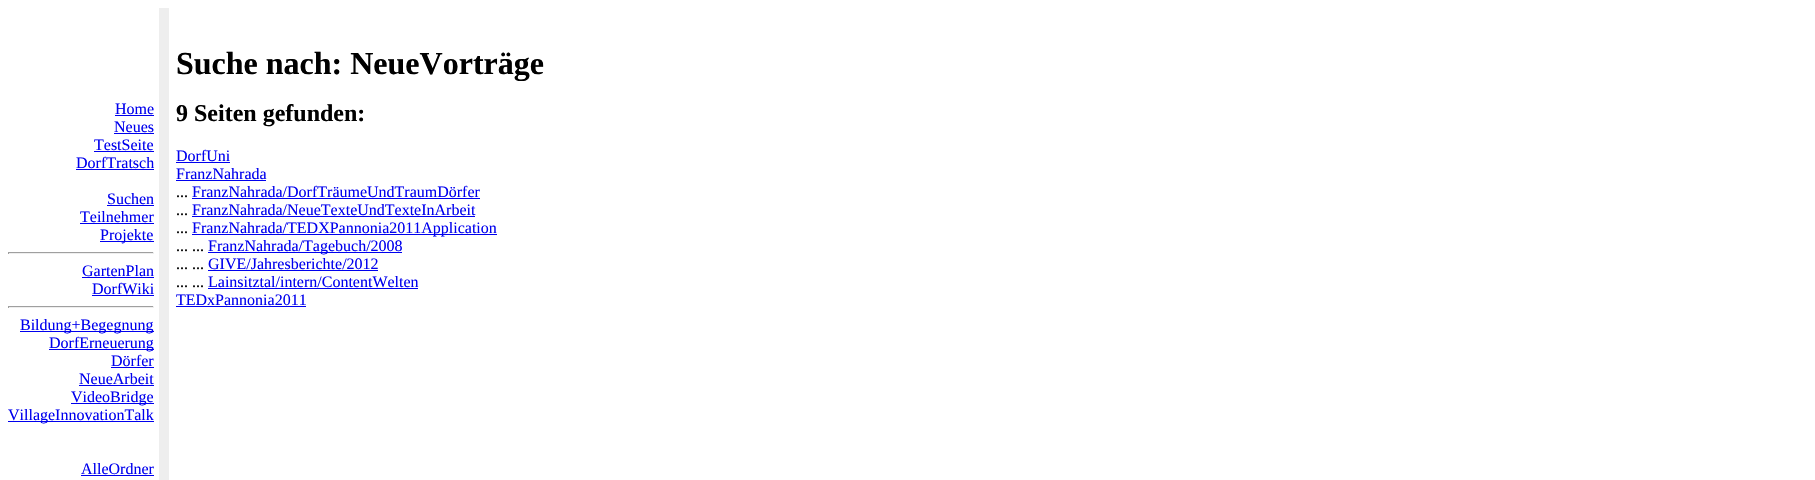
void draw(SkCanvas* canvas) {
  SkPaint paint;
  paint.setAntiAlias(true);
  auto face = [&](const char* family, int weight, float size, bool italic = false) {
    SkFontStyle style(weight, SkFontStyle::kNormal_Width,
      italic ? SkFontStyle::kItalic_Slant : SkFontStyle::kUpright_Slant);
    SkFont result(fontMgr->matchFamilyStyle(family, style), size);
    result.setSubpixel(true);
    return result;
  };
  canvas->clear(0xffffffff);
  {
    const struct { float x, y, w, h; SkColor color; } items[] = {
      {159, 8, 10, 472, 0xffeeeeee},
      {115, 115, 39, 1, 0xff0000ee},
      {114, 133, 40, 1, 0xff0000ee},
      {94, 151, 60, 1, 0xff0000ee},
      {76, 169, 78, 1, 0xff0000ee},
      {107, 205, 47, 1, 0xff0000ee},
      {80, 223, 74, 1, 0xff0000ee},
      {100, 241, 54, 1, 0xff0000ee},
      {8, 252, 146, 1, 0xff9f9f9f},
      {153, 252, 1, 2, 0xffeeeeee},
      {8, 253, 146, 1, 0xffeeeeee},
      {8, 252, 1, 2, 0xff9f9f9f},
      {82, 277, 72, 1, 0xff0000ee},
      {92, 295, 62, 1, 0xff0000ee},
      {8, 306, 146, 1, 0xff9f9f9f},
      {153, 306, 1, 2, 0xffeeeeee},
      {8, 307, 146, 1, 0xffeeeeee},
      {8, 306, 1, 2, 0xff9f9f9f},
      {20, 331, 134, 1, 0xff0000ee},
      {49, 349, 105, 1, 0xff0000ee},
      {111, 367, 43, 1, 0xff0000ee},
      {79, 385, 75, 1, 0xff0000ee},
      {71, 403, 83, 1, 0xff0000ee},
      {8, 421, 146, 1, 0xff0000ee},
      {81, 475, 73, 1, 0xff0000ee},
      {176, 162, 54, 1, 0xff0000ee},
      {176, 180, 90, 1, 0xff0000ee},
      {192, 198, 288, 1, 0xff0000ee},
      {192, 216, 283, 1, 0xff0000ee},
      {192, 234, 305, 1, 0xff0000ee},
      {208, 252, 194, 1, 0xff0000ee},
      {208, 270, 170, 1, 0xff0000ee},
      {208, 288, 210, 1, 0xff0000ee},
      {176, 306, 130, 1, 0xff0000ee},
    };
    for (auto [x, y, w, h, color] : items) {
      paint.setColor(color);
      canvas->drawRect(SkRect::MakeXYWH(x, y, w, h), paint);
    }
  }
  auto f0 = face("Liberation Serif", 700, 32);
  paint.setColor(0xff000000);
  canvas->drawString("Suche nach: NeueVorträge", 176, 74, f0, paint);
  auto f1 = face("Liberation Serif", 400, 16);
  paint.setColor(0xff0000ee);
  {
    const struct { const char* s; float x, y; } items[] = {
      {"Home", 115, 114},
      {"Neues", 114, 132},
      {"TestSeite", 94, 150},
      {"DorfTratsch", 76, 168},
      {"Suchen", 107, 204},
      {"Teilnehmer", 80, 222},
      {"Projekte", 100, 240},
      {"GartenPlan", 82, 276},
      {"DorfWiki", 92, 294},
      {"Bildung+Begegnung", 20, 330},
      {"DorfErneuerung", 49, 348},
      {"Dörfer", 111, 366},
      {"NeueArbeit", 79, 384},
      {"VideoBridge", 71, 402},
      {"VillageInnovationTalk", 8, 420},
      {"AlleOrdner", 81, 474},
    };
    for (auto [s, x, y] : items) {
      canvas->drawString(s, x, y, f1, paint);
    }
  }
  auto f2 = face("Liberation Serif", 700, 24);
  paint.setColor(0xff000000);
  canvas->drawString("9 Seiten gefunden:", 176, 121, f2, paint);
  paint.setColor(0xff0000ee);
  canvas->drawString("DorfUni", 176, 161, f1, paint);
  canvas->drawString("FranzNahrada", 176, 179, f1, paint);
  paint.setColor(0xff000000);
  canvas->drawString("...", 176, 197, f1, paint);
  paint.setColor(0xff0000ee);
  canvas->drawString("FranzNahrada/DorfTräumeUndTraumDörfer", 192, 197, f1, paint);
  paint.setColor(0xff000000);
  canvas->drawString("...", 176, 215, f1, paint);
  paint.setColor(0xff0000ee);
  canvas->drawString("FranzNahrada/NeueTexteUndTexteInArbeit", 192, 215, f1, paint);
  paint.setColor(0xff000000);
  canvas->drawString("...", 176, 233, f1, paint);
  paint.setColor(0xff0000ee);
  canvas->drawString("FranzNahrada/TEDXPannonia2011Application", 192, 233, f1, paint);
  paint.setColor(0xff000000);
  canvas->drawString("... ...", 176, 251, f1, paint);
  paint.setColor(0xff0000ee);
  canvas->drawString("FranzNahrada/Tagebuch/2008", 208, 251, f1, paint);
  paint.setColor(0xff000000);
  canvas->drawString("... ...", 176, 269, f1, paint);
  paint.setColor(0xff0000ee);
  canvas->drawString("GIVE/Jahresberichte/2012", 208, 269, f1, paint);
  paint.setColor(0xff000000);
  canvas->drawString("... ...", 176, 287, f1, paint);
  paint.setColor(0xff0000ee);
  canvas->drawString("Lainsitztal/intern/ContentWelten", 208, 287, f1, paint);
  canvas->drawString("TEDxPannonia2011", 176, 305, f1, paint);
}
